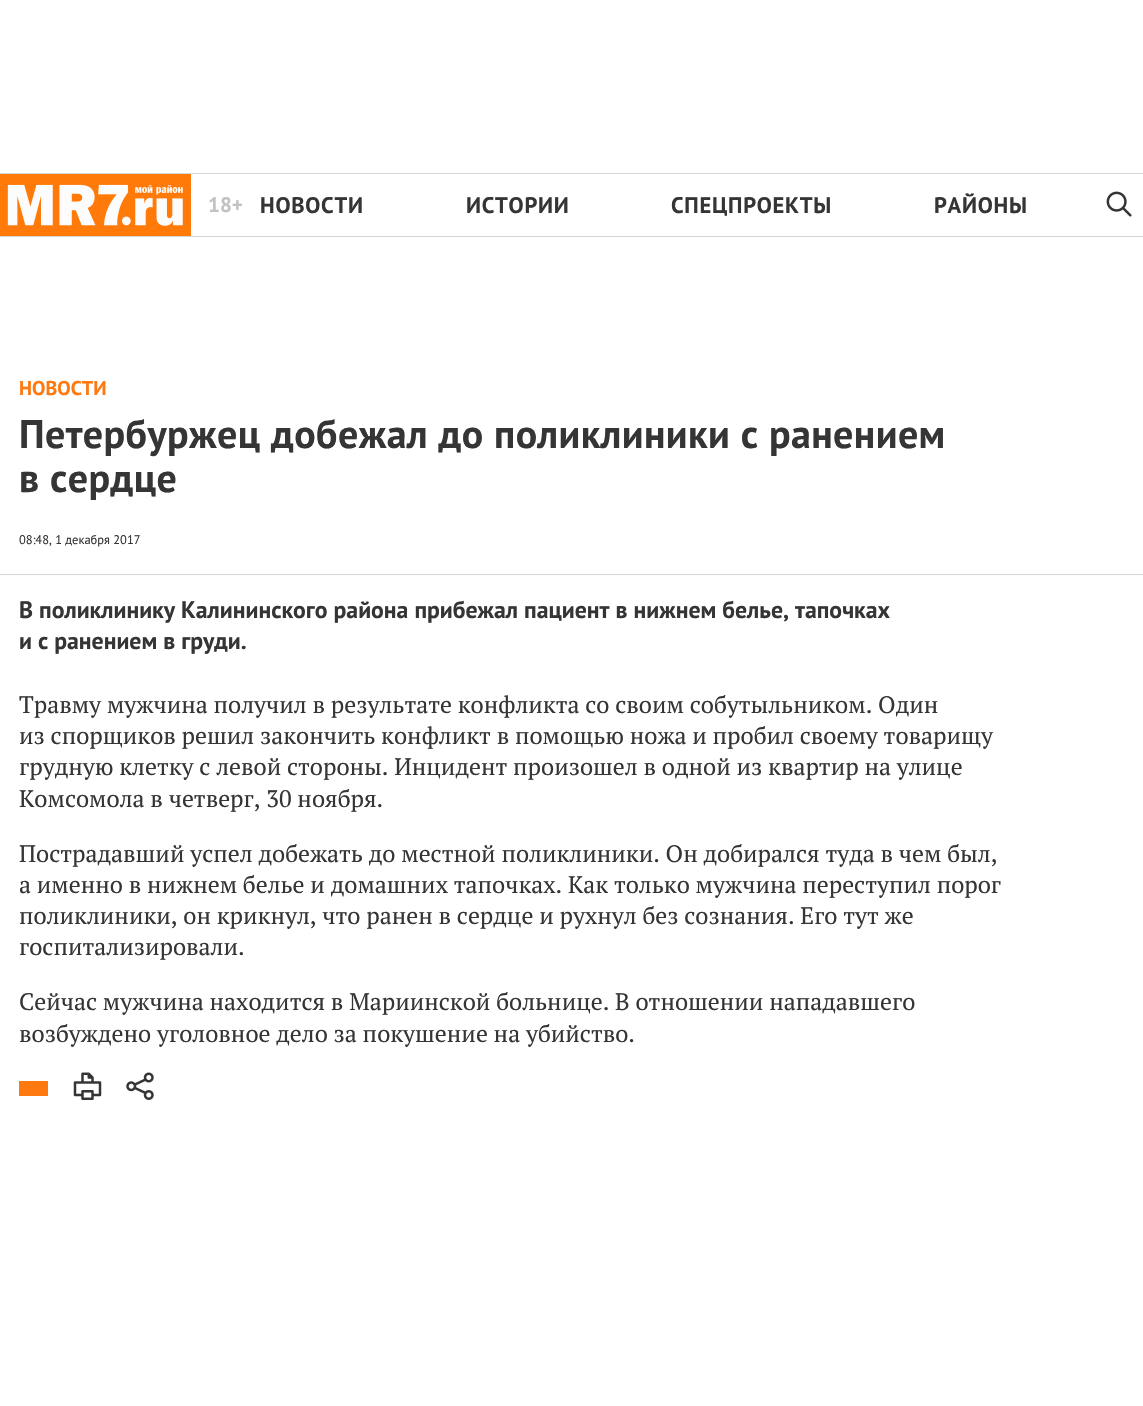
void draw(SkCanvas* canvas) {
  SkPaint paint;
  paint.setAntiAlias(true);
  auto face = [&](const char* family, int weight, float size, bool italic = false) {
    SkFontStyle style(weight, SkFontStyle::kNormal_Width,
      italic ? SkFontStyle::kItalic_Slant : SkFontStyle::kUpright_Slant);
    SkFont result(fontMgr->matchFamilyStyle(family, style), size);
    result.setSubpixel(true);
    return result;
  };
  auto writeSpaced = [&](const char* s, float x, float y, const SkFont& font, const SkPaint& ink, float letter, float word) {
    std::vector<SkGlyphID> glyphs(font.countText(s, strlen(s), SkTextEncoding::kUTF8));
    std::vector<float> xs(glyphs.size());
    font.textToGlyphs(s, strlen(s), SkTextEncoding::kUTF8, glyphs);
    font.getXPos(glyphs, xs, x);
    float extra = 0;
    for (size_t i = 0; i < glyphs.size(); i++) {
      xs[i] += extra;
      extra += letter + word * (glyphs[i] == font.unicharToGlyph(' '));
    }
    canvas->drawTextBlob(SkTextBlob::MakeFromPosHGlyphs(glyphs, xs, y, font), 0, 0, ink);
  };
  auto paste = [&](const char* path, float x, float y, float w, float h) {
    auto image = SkImages::DeferredFromEncodedData(SkData::MakeFromFileName(path));
    canvas->drawImageRect(image, SkRect::MakeXYWH(x, y, w, h), SkSamplingOptions());
  };
  canvas->clear(0xffffffff);
  paint.setColor(0xffd7d7d7);
  canvas->drawRect(SkRect::MakeXYWH(0, 173, 1143, 1), paint);
  canvas->drawRect(SkRect::MakeXYWH(0, 236, 1143, 1), paint);
  paste("img/1.png", 0, 174, 191, 62);
  paste("img/2.png", 1106, 191, 26, 26);
  canvas->drawRect(SkRect::MakeXYWH(0, 574, 1143, 1), paint);
  paint.setColor(0xffff7911);
  canvas->drawRect(SkRect::MakeXYWH(19, 1081, 29, 15), paint);
  paste("img/3.png", 73, 1072, 29, 28);
  paste("img/4.png", 126, 1072, 28, 28);
  auto f0 = face("PT Sans", 700, 21);
  paint.setColor(0xffc2c2c2);
  canvas->drawString("18+", 208, 212, f0, paint);
  auto f1 = face("PT Sans", 700, 22.5f);
  paint.setColor(0xff353535);
  {
    const struct { const char* s; float x, y; } items[] = {
      {"НОВОСТИ", 260, 213},
      {"ИСТОРИИ", 466, 213},
      {"СПЕЦПРОЕКТЫ", 671, 213},
      {"РАЙОНЫ", 934, 213},
    };
    for (auto [s, x, y] : items) {
      writeSpaced(s, x, y, f1, paint, 0.75f, 0);
    }
  }
  auto f2 = face("PT Sans", 700, 20);
  paint.setColor(0xffff7911);
  canvas->drawString("НОВОСТИ", 19, 395, f2, paint);
  auto f3 = face("PT Sans", 700, 40);
  paint.setColor(0xff353535);
  writeSpaced("Петербуржец добежал до поликлиники с ранением", 19, 448, f3, paint, 0.4f, 0);
  writeSpaced("в сердце", 19, 492, f3, paint, 0.4f, 0);
  auto f4 = face("PT Sans", 400, 12.5f);
  canvas->drawString("08:48, 1 декабря 2017", 19, 544, f4, paint);
  auto f5 = face("PT Sans", 700, 23.75f);
  canvas->drawString("В поликлинику Калининского района прибежал пациент в нижнем белье, тапочках", 19, 618, f5, paint);
  canvas->drawString("и с ранением в груди.", 19, 649, f5, paint);
  auto f6 = face("PT Serif", 400, 23.75f);
  {
    const struct { const char* s; float x, y; } items[] = {
      {"Травму мужчина получил в результате конфликта со своим собутыльником. Один", 19, 713},
      {"из спорщиков решил закончить конфликт в помощью ножа и пробил своему товарищу", 19, 744},
      {"грудную клетку с левой стороны. Инцидент произошел в одной из квартир на улице", 19, 775},
      {"Комсомола в четверг, 30 ноября.", 19, 807},
      {"Пострадавший успел добежать до местной поликлиники. Он добирался туда в чем был,", 19, 862},
      {"а именно в нижнем белье и домашних тапочках. Как только мужчина переступил порог", 19, 893},
      {"поликлиники, он крикнул, что ранен в сердце и рухнул без сознания. Его тут же", 19, 924},
      {"госпитализировали.", 19, 955},
      {"Сейчас мужчина находится в Мариинской больнице. В отношении нападавшего", 19, 1010},
      {"возбуждено уголовное дело за покушение на убийство.", 19, 1042},
    };
    for (auto [s, x, y] : items) {
      canvas->drawString(s, x, y, f6, paint);
    }
  }
}
